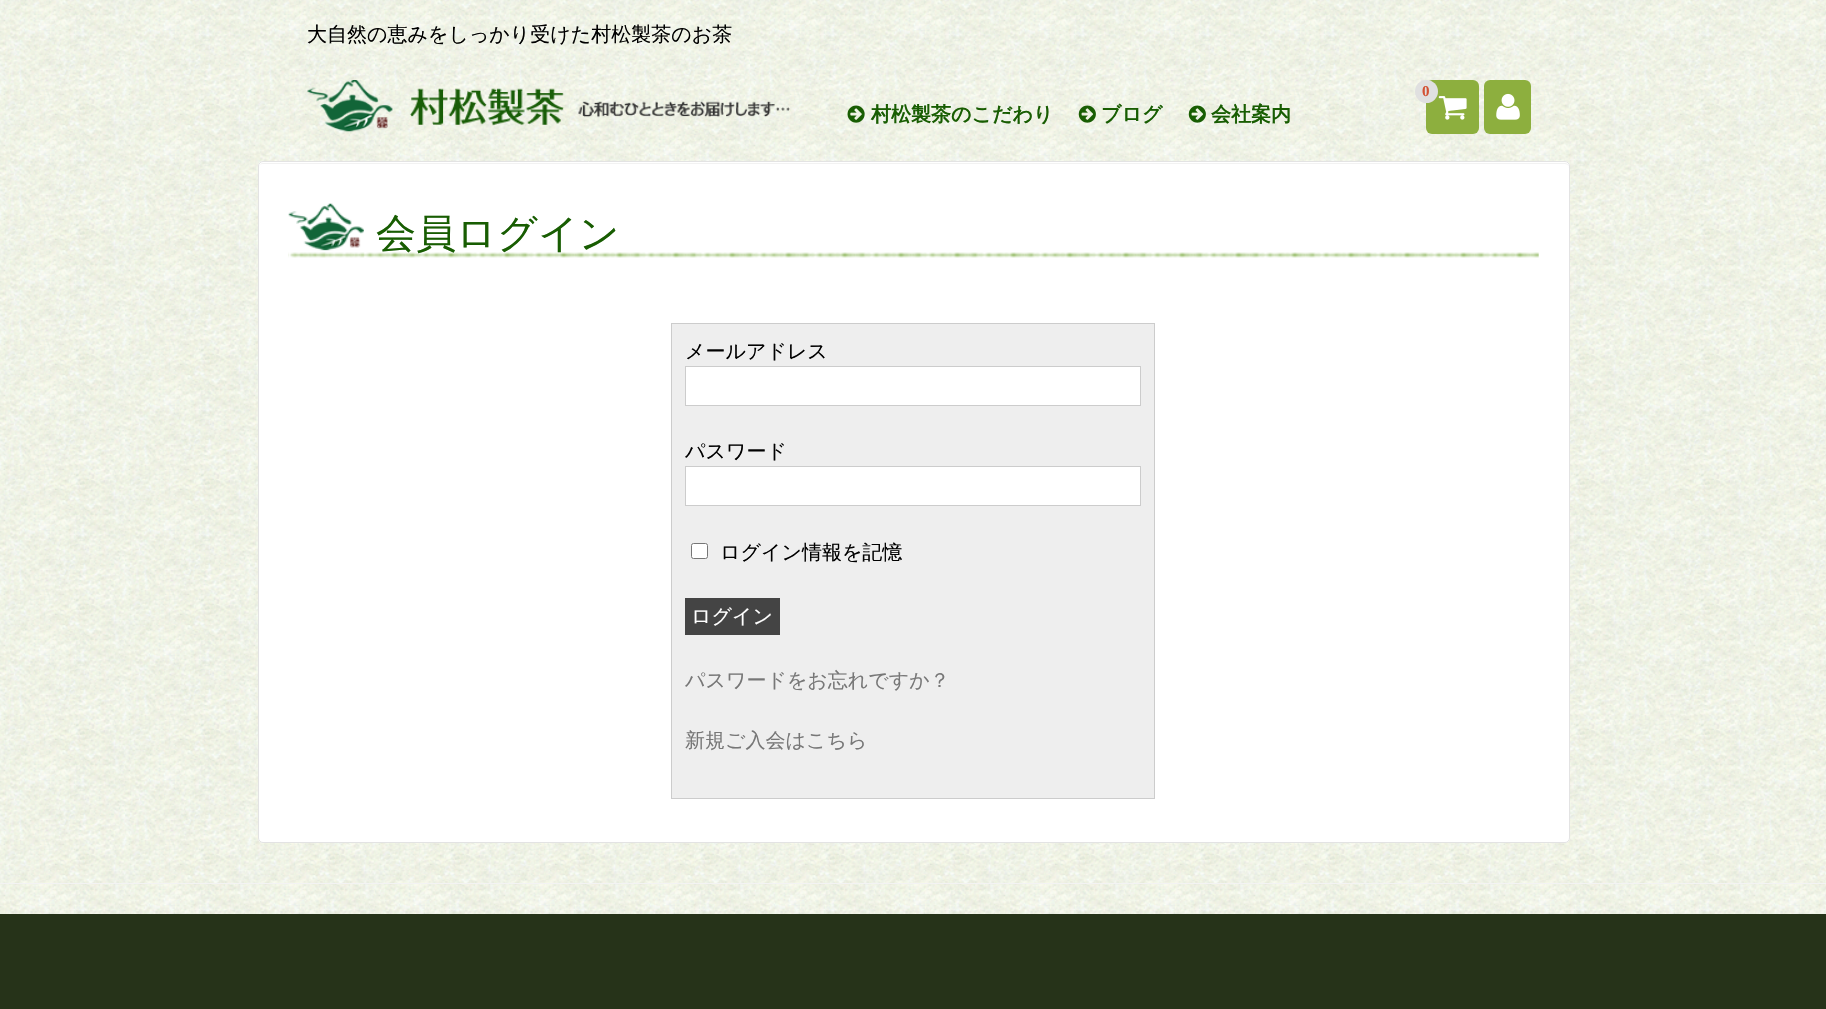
void draw(SkCanvas* canvas) {
  SkPaint paint;
  paint.setAntiAlias(true);
  auto face = [&](const char* family, int weight, float size, bool italic = false) {
    SkFontStyle style(weight, SkFontStyle::kNormal_Width,
      italic ? SkFontStyle::kItalic_Slant : SkFontStyle::kUpright_Slant);
    SkFont result(fontMgr->matchFamilyStyle(family, style), size);
    result.setSubpixel(true);
    return result;
  };
  auto paste = [&](const char* path, float x, float y, float w, float h) {
    auto image = SkImages::DeferredFromEncodedData(SkData::MakeFromFileName(path));
    canvas->drawImageRect(image, SkRect::MakeXYWH(x, y, w, h), SkSamplingOptions());
  };
  auto shape = [&](const char* data, bool evenOdd = false) {
    SkPath result = *SkParsePath::FromSVGString(data);
    if (evenOdd) result.setFillType(SkPathFillType::kEvenOdd);
    return result;
  };
  canvas->clear(0xffffffff);
  paste("img/1.png", 0, 0, 1826, 914);
  paste("img/2.png", 307, 80, 483, 52);
  paint.setColor(0xff8daf3e);
  canvas->drawRoundRect(SkRect::MakeXYWH(1426, 80, 53, 54), 6, 6, paint);
  paste("img/3.png", 1438, 96, 29, 24);
  paint.setColor(0xffe0e0e0);
  canvas->drawCircle(1426.5f, 91.5f, 11.5f, paint);
  paint.setColor(0xff8daf3e);
  canvas->drawRoundRect(SkRect::MakeXYWH(1484, 80, 47, 54), 6, 6, paint);
  paste("img/4.png", 1496, 93, 24, 27);
  paste("img/5.png", 847, 105, 18, 18);
  paste("img/6.png", 1078, 105, 18, 18);
  paste("img/7.png", 1188, 105, 18, 18);
  paint.setColor(0xffffffff);
  canvas->drawRoundRect(SkRect::MakeXYWH(258, 161, 1312, 682), 5, 5, paint);
  paint.setColor(0xfff2f2f2);
  canvas->drawPath(shape("M262 164H1565C1567 164 1569 165 1569 168V167C1569 165 1567 163 1565 163H263C261 163 259 165 259 167V168C259 165 260 164 262 164Z"), paint);
  paint.setStroke(true);
  paint.setStrokeWidth(1);
  paint.setColor(0xffe3e3e3);
  canvas->drawRoundRect(SkRect::MakeXYWH(258.5f, 161.5f, 1311, 681), 4.5f, 4.5f, paint);
  paste("img/8.png", 288, 252, 1251, 6);
  paste("img/9.png", 288, 203, 76, 55);
  paint.setStroke(false);
  paint.setColor(0xffeeeeee);
  canvas->drawRect(SkRect::MakeXYWH(671.5f, 323.5f, 483, 475), paint);
  paint.setStroke(true);
  paint.setColor(0xffcccccc);
  canvas->drawRect(SkRect::MakeXYWH(671.5f, 323.5f, 483, 475), paint);
  paint.setStroke(false);
  paint.setColor(0xffffffff);
  canvas->drawRect(SkRect::MakeXYWH(685.5f, 366.5f, 455, 39), paint);
  paint.setStroke(true);
  paint.setColor(0xffcccccc);
  canvas->drawRect(SkRect::MakeXYWH(685.5f, 366.5f, 455, 39), paint);
  paint.setStroke(false);
  paint.setColor(0xffffffff);
  canvas->drawRect(SkRect::MakeXYWH(685.5f, 466.5f, 455, 39), paint);
  paint.setStroke(true);
  paint.setColor(0xffcccccc);
  canvas->drawRect(SkRect::MakeXYWH(685.5f, 466.5f, 455, 39), paint);
  paint.setStroke(false);
  paint.setColor(0xffffffff);
  canvas->drawRoundRect(SkRect::MakeXYWH(691.5f, 543.5f, 16, 15), 2, 2, paint);
  paint.setStroke(true);
  paint.setColor(0xff767676);
  canvas->drawRoundRect(SkRect::MakeXYWH(691.5f, 543.5f, 16, 15), 2, 2, paint);
  paint.setStroke(false);
  {
    const struct { float x, y, w, h; SkColor color; } items[] = {
      {685, 598, 95, 37, 0xff444444},
      {0, 883, 1826, 1, 0xfff3f3f3},
      {0, 914, 1826, 95, 0xff263319},
    };
    for (auto [x, y, w, h, color] : items) {
      paint.setColor(color);
      canvas->drawRect(SkRect::MakeXYWH(x, y, w, h), paint);
    }
  }
  auto f0 = face("WenQuanYi Zen Hei", 500, 20);
  paint.setColor(0xff000000);
  canvas->drawString("大自然の恵みをしっかり受けた村松製茶のお茶", 307, 41, f0, paint);
  auto f1 = face("Liberation Serif", 700, 15);
  paint.setColor(0xffd35134);
  canvas->drawString("0", 1422, 96, f1, paint);
  auto f2 = face("WenQuanYi Zen Hei", 700, 20);
  paint.setColor(0xff185d02);
  {
    const struct { const char* s; float x, y; } items[] = {
      {"村松製茶のこだわり", 871, 121},
      {"ブログ", 1101, 121},
      {"会社案内", 1211, 121},
    };
    for (auto [s, x, y] : items) {
      canvas->drawString(s, x, y, f2, paint);
    }
  }
  auto f3 = face("WenQuanYi Zen Hei", 500, 40);
  canvas->drawString("会員ログイン", 376, 247, f3, paint);
  paint.setColor(0xff000000);
  {
    const struct { const char* s; float x, y; } items[] = {
      {"メールアドレス", 685, 358},
      {"パスワード", 685, 458},
      {"ログイン情報を記憶", 720, 559},
    };
    for (auto [s, x, y] : items) {
      canvas->drawString(s, x, y, f0, paint);
    }
  }
  paint.setColor(0xffffffff);
  canvas->drawString("ログイン", 691, 623, f0, paint);
  paint.setColor(0xff777777);
  canvas->drawString("パスワードをお忘れですか？", 685, 687, f0, paint);
  canvas->drawString("新規ご入会はこちら", 685, 747, f0, paint);
}
